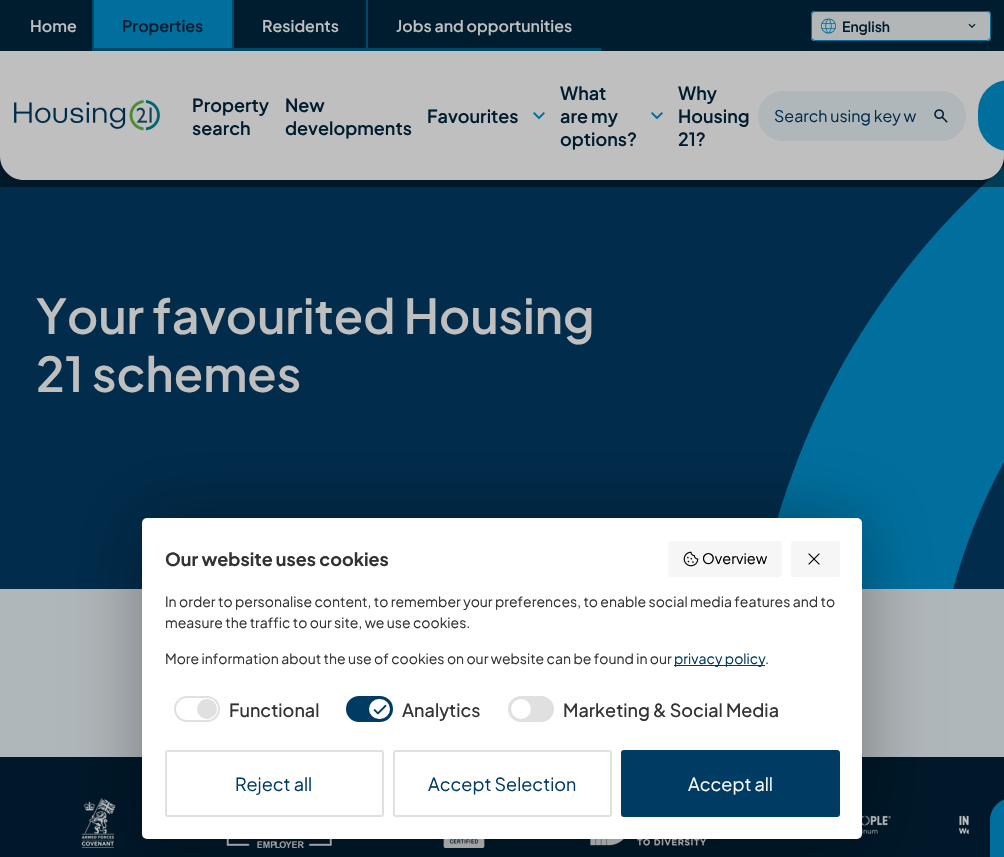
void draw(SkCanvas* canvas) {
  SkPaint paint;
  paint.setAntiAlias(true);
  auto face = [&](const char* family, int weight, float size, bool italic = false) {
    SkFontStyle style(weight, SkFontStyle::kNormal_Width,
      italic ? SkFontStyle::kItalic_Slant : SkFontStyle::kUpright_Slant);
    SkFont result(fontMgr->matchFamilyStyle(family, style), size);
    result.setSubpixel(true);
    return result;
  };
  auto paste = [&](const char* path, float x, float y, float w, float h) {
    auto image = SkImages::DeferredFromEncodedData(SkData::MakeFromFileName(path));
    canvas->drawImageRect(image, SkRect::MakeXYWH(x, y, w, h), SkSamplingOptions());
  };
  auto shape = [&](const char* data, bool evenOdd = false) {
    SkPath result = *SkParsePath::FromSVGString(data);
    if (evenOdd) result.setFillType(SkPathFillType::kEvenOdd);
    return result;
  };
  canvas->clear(0xffb0b7ba);
  {
    const struct { float x, y, w, h; SkColor color; } items[] = {
      {0, 0, 1004, 51, 0xff001c2f},
      {92, 0, 2, 52, 0xff004867},
      {94, 0, 138, 48, 0xff006f9e},
      {232, 0, 2, 51, 0xff004867},
      {94, 48, 138, 3, 0xff004867},
      {366, 0, 2, 51, 0xff004867},
      {234, 48, 132, 3, 0xff004867},
      {368, 48, 233, 3, 0xff004867},
    };
    for (auto [x, y, w, h, color] : items) {
      paint.setColor(color);
      canvas->drawRect(SkRect::MakeXYWH(x, y, w, h), paint);
    }
  }
  paint.setColor(0xffb3b6b6);
  canvas->drawRoundRect(SkRect::MakeXYWH(811, 11, 180, 30), 4, 4, paint);
  paste("img/1.png", 821, 18, 15, 16);
  paint.setStroke(true);
  paint.setStrokeWidth(1);
  paint.setColor(0xff006f9e);
  canvas->drawRoundRect(SkRect::MakeXYWH(811.5f, 11.5f, 179, 29), 3.5f, 3.5f, paint);
  paste("img/2.png", 968, 23, 8, 5);
  paint.setStroke(false);
  paint.setColor(0xff012c4b);
  canvas->drawRect(SkRect::MakeXYWH(0, 156, 1004, 433), paint);
  canvas->save();
  canvas->clipRect(SkRect::MakeXYWH(746, 134, 258, 455));
  paint.setStroke(true);
  paint.setStrokeWidth(188.5f);
  paint.setColor(0xff006f9e);
  canvas->drawCircle(1500.5f, 734.5f, 660.5f, paint);
  canvas->restore();
  paint.setStroke(false);
  paint.setColor(0x75000000);
  canvas->drawRect(SkRect::MakeXYWH(0, 156, 1004, 31), paint);
  paint.setColor(0xffbfbfbf);
  canvas->drawPath(shape("M0 51H1004V156C1004 169.5 993.5 180 980 180H24C10.5 180 0 169.5 0 156Z"), paint);
  paste("img/3.png", 14, 100, 146, 31);
  paste("img/4.png", 533, 112, 12, 8);
  paste("img/4.png", 651, 112, 12, 8);
  paint.setColor(0xffb0b7ba);
  canvas->drawRoundRect(SkRect::MakeXYWH(758, 91, 208, 50), 25, 25, paint);
  canvas->drawCircle(941, 116, 25, paint);
  paste("img/5.png", 934, 109, 14, 14);
  paint.setColor(0xff006f9e);
  canvas->drawRoundRect(SkRect::MakeXYWH(978, 80, 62, 71), 35.5f, 35.5f, paint);
  paint.setColor(0xff001829);
  canvas->drawRect(SkRect::MakeXYWH(0, 757, 1004, 100), paint);
  paste("img/9.png", 81, 798, 35, 50);
  paste("img/10.png", 862, 815, 29, 19);
  paste("img/11.png", 958, 815, 11, 19);
  paste("img/12.png", 226, 839, 106, 9);
  paste("img/13.png", 443, 839, 42, 9);
  paste("img/14.png", 590, 839, 117, 7);
  paint.setColor(0x54000000);
  paint.setMaskFilter(SkMaskFilter::MakeBlur(kNormal_SkBlurStyle, 36));
  canvas->drawRoundRect(SkRect::MakeXYWH(142, 518, 720, 321), 5, 5, paint);
  paint.setMaskFilter(nullptr);
  paint.setColor(0xffffffff);
  canvas->drawRoundRect(SkRect::MakeXYWH(142, 518, 720, 321), 5, 5, paint);
  paint.setColor(0xfff6f6f6);
  canvas->drawRoundRect(SkRect::MakeXYWH(668, 541, 114, 36), 3, 3, paint);
  paste("img/6.png", 683, 551, 16, 16);
  canvas->drawRoundRect(SkRect::MakeXYWH(791, 541, 49, 36), 3, 3, paint);
  paste("img/7.png", 808, 553, 12, 12);
  paint.setColor(0xff003b64);
  canvas->drawRect(SkRect::MakeXYWH(674, 665, 91, 1), paint);
  paint.setStroke(true);
  paint.setStrokeWidth(2);
  paint.setColor(0xffe0e0e0);
  canvas->drawRoundRect(SkRect::MakeXYWH(175, 697, 44, 24), 12, 12, paint);
  paint.setStroke(false);
  canvas->drawCircle(207, 709, 10, paint);
  paint.setColor(0xff003b64);
  canvas->drawRoundRect(SkRect::MakeXYWH(347, 697, 45, 24), 12, 12, paint);
  paint.setStroke(true);
  canvas->drawRoundRect(SkRect::MakeXYWH(347, 697, 45, 24), 12, 12, paint);
  paint.setStroke(false);
  paint.setColor(0xffffffff);
  canvas->drawRoundRect(SkRect::MakeXYWH(369, 699, 21, 20), 10, 10, paint);
  paste("img/8.png", 373, 704, 14, 11);
  paint.setColor(0xffe0e0e0);
  canvas->drawRoundRect(SkRect::MakeXYWH(509, 697, 44, 24), 12, 12, paint);
  paint.setStroke(true);
  canvas->drawRoundRect(SkRect::MakeXYWH(509, 697, 44, 24), 12, 12, paint);
  paint.setStroke(false);
  paint.setColor(0xffffffff);
  canvas->drawCircle(521, 709, 10, paint);
  paint.setStroke(true);
  paint.setColor(0xffe0e0e0);
  canvas->drawRoundRect(SkRect::MakeXYWH(166, 751, 217, 65), 2, 2, paint);
  canvas->drawRoundRect(SkRect::MakeXYWH(394, 751, 217, 65), 2, 2, paint);
  paint.setStroke(false);
  paint.setColor(0xff003b64);
  canvas->drawRoundRect(SkRect::MakeXYWH(622, 751, 217, 65), 2, 2, paint);
  paint.setStroke(true);
  canvas->drawRoundRect(SkRect::MakeXYWH(622, 751, 217, 65), 2, 2, paint);
  paint.setStroke(false);
  paint.setColor(0xff006f9e);
  canvas->drawPath(shape("M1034 820V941C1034 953 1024 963 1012 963C1000 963 990 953 990 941V820C990 808 1000 798 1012 798C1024 798 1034 808 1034 820Z"), paint);
  auto f0 = face("Plus Jakarta Sans", 600, 16);
  paint.setColor(0xffbfbfbf);
  canvas->drawString("Home", 30, 32, f0, paint);
  paint.setColor(0xff001c2f);
  canvas->drawString("Properties", 122, 32, f0, paint);
  paint.setColor(0xffbfbfbf);
  canvas->drawString("Residents", 262, 32, f0, paint);
  canvas->drawString("Jobs and opportunities", 396, 32, f0, paint);
  auto f1 = face("Plus Jakarta Sans", 600, 14);
  paint.setColor(0xff001c2f);
  canvas->drawString("English", 842, 32, f1, paint);
  auto f2 = face("Plus Jakarta Sans", 600, 18);
  {
    const struct { const char* s; float x, y; } items[] = {
      {"Property", 192, 112},
      {"search", 192, 135},
      {"New", 285, 112},
      {"developments", 285, 135},
      {"Favourites", 427, 123},
      {"What", 560, 100},
      {"are my", 560, 123},
      {"options?", 560, 146},
      {"Why", 678, 100},
      {"Housing", 678, 123},
      {"21?", 678, 146},
    };
    for (auto [s, x, y] : items) {
      canvas->drawString(s, x, y, f2, paint);
    }
  }
  auto f3 = face("Plus Jakarta Sans", 400, 16);
  paint.setColor(0xff012c4b);
  canvas->drawString("Search using key w", 774, 122, f3, paint);
  auto f4 = face("Plus Jakarta Sans", 600, 48);
  paint.setColor(0xffbfbfbf);
  canvas->drawString("Your favourited Housing", 36, 334, f4, paint);
  canvas->drawString("21 schemes", 36, 392, f4, paint);
  auto f5 = face("Plus Jakarta Sans", 700, 18);
  paint.setColor(0xff333333);
  canvas->drawString("Our website uses cookies", 165, 566, f5, paint);
  auto f6 = face("Plus Jakarta Sans", 400, 14.5f);
  paint.setColor(0xff000000);
  canvas->drawString("Overview", 702, 564, f6, paint);
  auto f7 = face("Plus Jakarta Sans", 400, 14);
  paint.setColor(0xff333333);
  {
    const struct { const char* s; float x, y; } items[] = {
      {"In order to personalise content, to remember your preferences, to enable social media features and to", 165, 607},
      {"measure the traffic to our site, we use cookies.", 165, 628},
      {"More information about the use of cookies on our website can be found in our", 165, 664},
    };
    for (auto [s, x, y] : items) {
      canvas->drawString(s, x, y, f7, paint);
    }
  }
  paint.setColor(0xff003b64);
  canvas->drawString("privacy policy", 674, 664, f7, paint);
  paint.setColor(0xff333333);
  canvas->drawString(".", 765, 664, f7, paint);
  auto f8 = face("Plus Jakarta Sans", 500, 18);
  {
    const struct { const char* s; float x, y; } items[] = {
      {"Functional", 229, 717},
      {"Analytics", 402, 717},
      {"Marketing & Social Media", 563, 717},
    };
    for (auto [s, x, y] : items) {
      canvas->drawString(s, x, y, f8, paint);
    }
  }
  auto f9 = face("Plus Jakarta Sans", 400, 18);
  paint.setColor(0xff003b64);
  canvas->drawString("Reject all", 235, 791, f9, paint);
  canvas->drawString("Accept Selection", 428, 791, f9, paint);
  paint.setColor(0xffffffff);
  canvas->drawString("Accept all", 688, 791, f9, paint);
}
